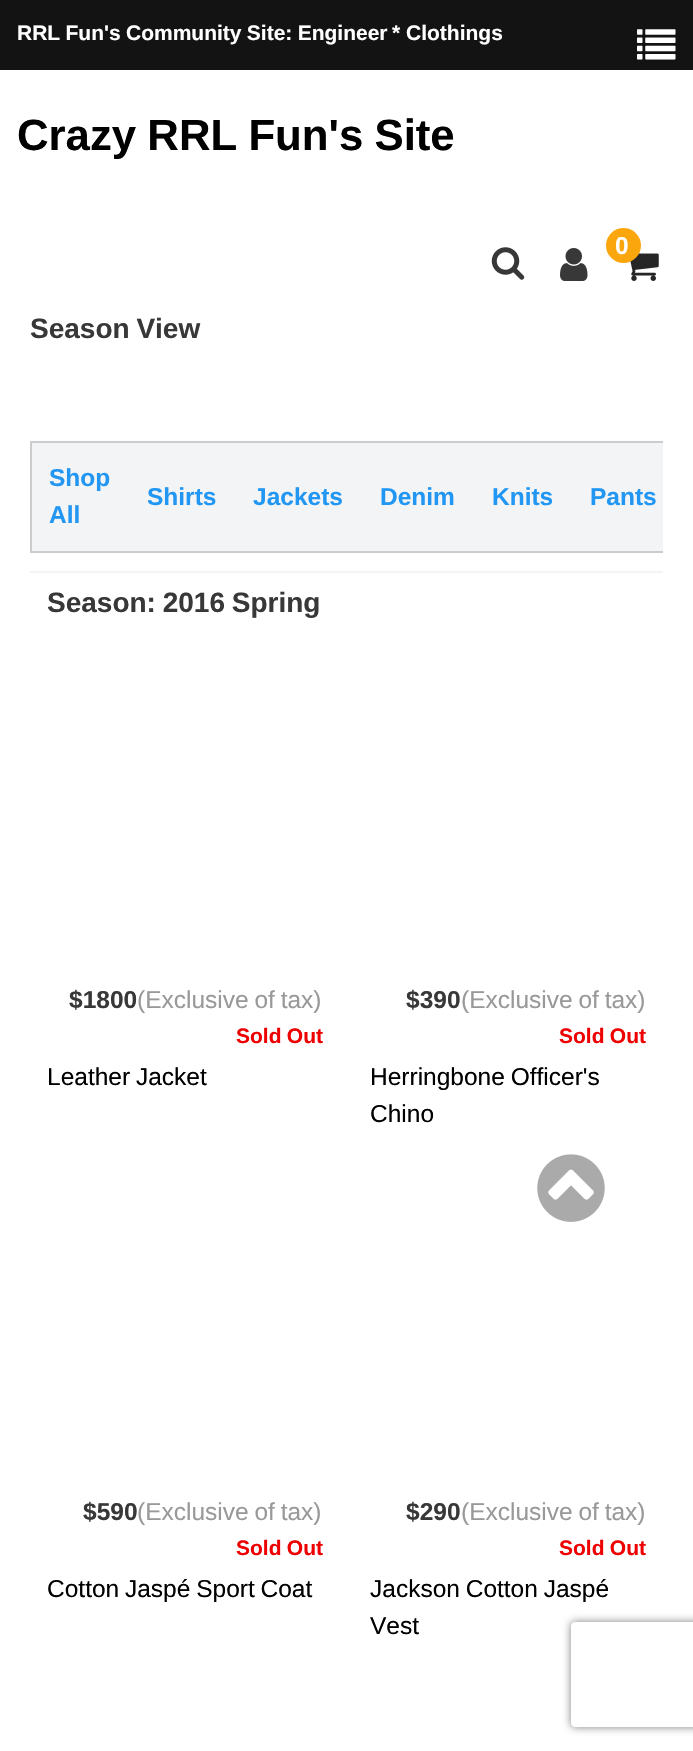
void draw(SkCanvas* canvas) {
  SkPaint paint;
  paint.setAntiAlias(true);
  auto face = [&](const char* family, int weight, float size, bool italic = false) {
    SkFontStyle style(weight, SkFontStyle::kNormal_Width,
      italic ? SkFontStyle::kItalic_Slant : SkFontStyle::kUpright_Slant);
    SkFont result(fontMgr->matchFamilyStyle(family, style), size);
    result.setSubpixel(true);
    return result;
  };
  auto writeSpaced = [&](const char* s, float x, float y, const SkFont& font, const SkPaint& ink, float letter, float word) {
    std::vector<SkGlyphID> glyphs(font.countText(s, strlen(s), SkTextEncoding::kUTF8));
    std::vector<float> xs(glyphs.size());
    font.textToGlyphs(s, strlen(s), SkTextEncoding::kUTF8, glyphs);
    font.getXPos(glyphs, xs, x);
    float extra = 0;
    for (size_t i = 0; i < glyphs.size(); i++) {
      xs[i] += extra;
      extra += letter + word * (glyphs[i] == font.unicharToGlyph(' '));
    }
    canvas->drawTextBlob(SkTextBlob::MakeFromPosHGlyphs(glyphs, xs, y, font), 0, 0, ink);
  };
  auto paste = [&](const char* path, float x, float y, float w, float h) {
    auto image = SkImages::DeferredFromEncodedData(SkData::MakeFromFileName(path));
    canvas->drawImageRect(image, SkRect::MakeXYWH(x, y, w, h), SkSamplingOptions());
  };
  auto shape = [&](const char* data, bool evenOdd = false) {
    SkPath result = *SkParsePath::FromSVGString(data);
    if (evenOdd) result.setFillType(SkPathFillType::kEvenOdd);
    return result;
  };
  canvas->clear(0xffffffff);
  paint.setColor(0xff131313);
  canvas->drawRect(SkRect::MakeXYWH(0, 0, 693, 70), paint);
  paste("img/1.png", 491, 247, 34, 33);
  paste("img/2.png", 560, 248, 28, 33);
  paste("img/3.png", 630, 253, 29, 28);
  paint.setColor(0xfffba60d);
  canvas->drawCircle(623.5f, 245.5f, 17.5f, paint);
  paste("img/4.png", 637, 29, 39, 31);
  {
    const struct { float x, y, w, h; SkColor color; } items[] = {
      {30, 571, 633, 2, 0xfff3f4f5},
      {30, 441, 633, 2, 0xffcccccc},
      {30, 551, 633, 2, 0xffcccccc},
      {30, 441, 2, 112, 0xffcccccc},
      {32, 443, 631, 108, 0xfff3f4f5},
    };
    for (auto [x, y, w, h, color] : items) {
      paint.setColor(color);
      canvas->drawRect(SkRect::MakeXYWH(x, y, w, h), paint);
    }
  }
  paste("img/5.png", 537, 1154, 68, 68);
  canvas->save();
  canvas->clipPath(shape("M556 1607H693V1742H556ZM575 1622H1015C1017 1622 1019 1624 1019 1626V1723C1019 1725 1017 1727 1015 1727H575C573 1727 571 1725 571 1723V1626C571 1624 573 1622 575 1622Z", true), true);
  paint.setColor(0xff808080);
  paint.setMaskFilter(SkMaskFilter::MakeBlur(kNormal_SkBlurStyle, 4.5f));
  canvas->drawRoundRect(SkRect::MakeXYWH(571, 1622, 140, 105), 4, 4, paint);
  paint.setMaskFilter(nullptr);
  canvas->restore();
  auto f0 = face("Liberation Sans", 700, 21);
  paint.setColor(0xffffffff);
  writeSpaced("RRL Fun's Community Site: Engineer", 17, 40, f0, paint, 0, -0.5f);
  canvas->drawString("*", 392, 40, f0, paint);
  canvas->drawString("Clothings", 406, 40, f0, paint);
  auto f1 = face("Liberation Sans", 700, 43.75f);
  paint.setColor(0xff000000);
  writeSpaced("Crazy RRL Fun's Site", 17, 150, f1, paint, 0, -1);
  auto f2 = face("Liberation Sans", 700, 24.5f);
  paint.setColor(0xffffffff);
  canvas->drawString("0", 615, 254, f2, paint);
  auto f3 = face("Liberation Sans", 700, 28);
  paint.setColor(0xff383838);
  writeSpaced("Season View", 30, 338, f3, paint, 0, -1);
  paint.setColor(0xff2196f3);
  {
    const struct { const char* s; float x, y; } items[] = {
      {"Shop", 49, 486},
      {"All", 49, 523},
      {"Shirts", 147, 505},
      {"Jackets", 253, 505},
      {"Denim", 380, 505},
      {"Knits", 492, 505},
      {"Pants", 590, 505},
    };
    for (auto [s, x, y] : items) {
      canvas->drawString(s, x, y, f2, paint);
    }
  }
  paint.setColor(0xff383838);
  writeSpaced("Season: 2016 Spring", 47, 612, f3, paint, 0, -1);
  canvas->drawString("$1800", 69, 1008, f2, paint);
  auto f4 = face("Liberation Sans", 400, 24.5f);
  paint.setColor(0xff999999);
  writeSpaced("(Exclusive of tax)", 137, 1008, f4, paint, 0, -1);
  paint.setColor(0xffee0000);
  writeSpaced("Sold Out", 236, 1043, f0, paint, 0, -0.5f);
  paint.setColor(0xff000000);
  writeSpaced("Leather Jacket", 47, 1085, f4, paint, 0, -1);
  paint.setColor(0xff383838);
  canvas->drawString("$390", 406, 1008, f2, paint);
  paint.setColor(0xff999999);
  writeSpaced("(Exclusive of tax)", 461, 1008, f4, paint, 0, -1);
  paint.setColor(0xffee0000);
  writeSpaced("Sold Out", 559, 1043, f0, paint, 0, -0.5f);
  paint.setColor(0xff000000);
  writeSpaced("Herringbone Officer's", 370, 1085, f4, paint, 0, -1);
  canvas->drawString("Chino", 370, 1122, f4, paint);
  paint.setColor(0xff383838);
  canvas->drawString("$590", 83, 1520, f2, paint);
  paint.setColor(0xff999999);
  writeSpaced("(Exclusive of tax)", 137, 1520, f4, paint, 0, -1);
  paint.setColor(0xffee0000);
  writeSpaced("Sold Out", 236, 1555, f0, paint, 0, -0.5f);
  paint.setColor(0xff000000);
  writeSpaced("Cotton Jaspé Sport Coat", 47, 1597, f4, paint, 0, -1);
  paint.setColor(0xff383838);
  canvas->drawString("$290", 406, 1520, f2, paint);
  paint.setColor(0xff999999);
  writeSpaced("(Exclusive of tax)", 461, 1520, f4, paint, 0, -1);
  paint.setColor(0xffee0000);
  writeSpaced("Sold Out", 559, 1555, f0, paint, 0, -0.5f);
  paint.setColor(0xff000000);
  writeSpaced("Jackson Cotton Jaspé", 370, 1597, f4, paint, 0, -1);
  canvas->drawString("Vest", 370, 1634, f4, paint);
}
